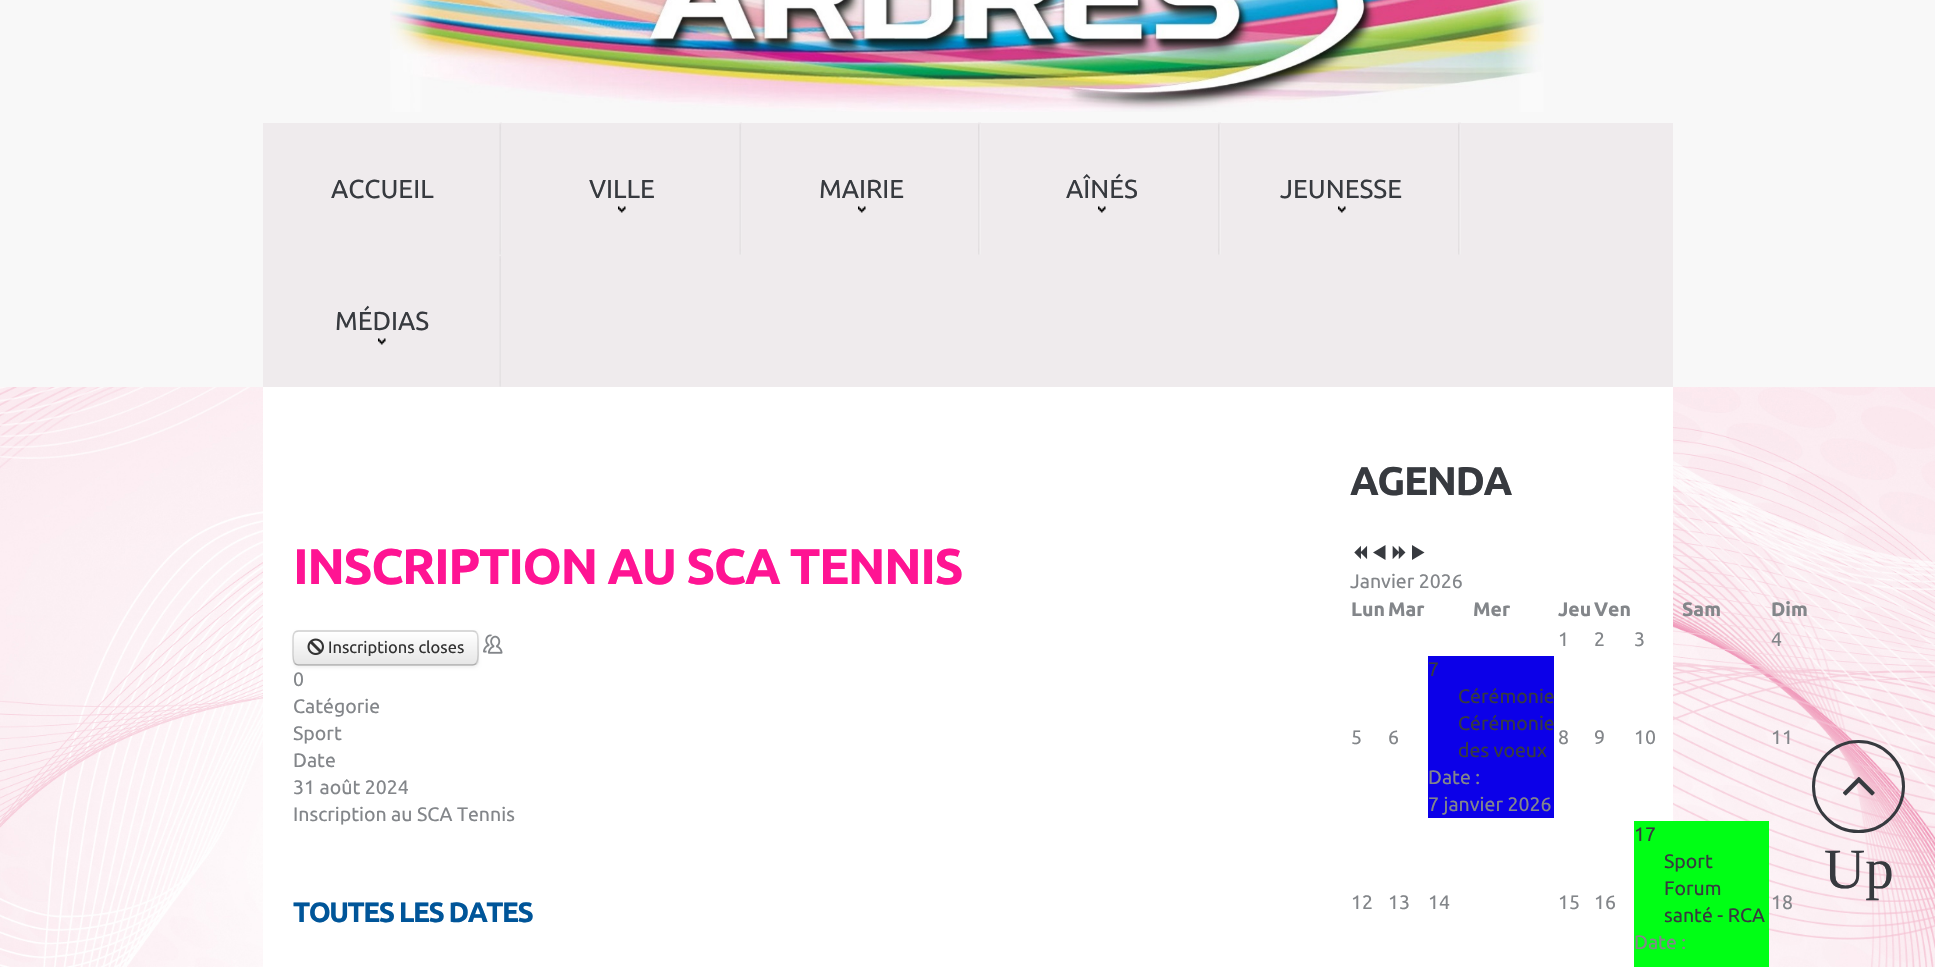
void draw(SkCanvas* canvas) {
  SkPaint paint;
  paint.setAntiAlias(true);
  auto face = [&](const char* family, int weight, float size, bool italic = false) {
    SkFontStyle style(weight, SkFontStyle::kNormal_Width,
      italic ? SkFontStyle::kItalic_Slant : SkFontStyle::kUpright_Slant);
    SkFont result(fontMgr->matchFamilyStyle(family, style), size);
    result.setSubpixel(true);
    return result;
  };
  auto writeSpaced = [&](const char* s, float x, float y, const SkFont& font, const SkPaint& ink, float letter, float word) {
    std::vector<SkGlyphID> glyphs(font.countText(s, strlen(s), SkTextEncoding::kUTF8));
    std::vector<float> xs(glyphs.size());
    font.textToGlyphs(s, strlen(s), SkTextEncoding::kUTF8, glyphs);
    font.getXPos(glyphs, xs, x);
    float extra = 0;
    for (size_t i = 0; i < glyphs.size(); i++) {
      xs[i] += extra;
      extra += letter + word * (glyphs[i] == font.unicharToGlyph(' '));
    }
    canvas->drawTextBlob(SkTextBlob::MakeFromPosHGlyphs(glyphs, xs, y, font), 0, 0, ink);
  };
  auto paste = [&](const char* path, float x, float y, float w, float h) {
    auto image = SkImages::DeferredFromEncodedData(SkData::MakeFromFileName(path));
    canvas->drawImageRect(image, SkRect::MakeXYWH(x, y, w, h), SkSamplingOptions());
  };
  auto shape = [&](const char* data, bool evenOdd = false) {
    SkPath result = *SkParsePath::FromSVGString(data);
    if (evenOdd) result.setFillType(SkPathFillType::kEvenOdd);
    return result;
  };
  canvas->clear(0xffffffff);
  paste("img/1.png", 0, 387, 1935, 580);
  paint.setColor(0xfff8f8f8);
  canvas->drawRect(SkRect::MakeXYWH(0, 0, 1935, 387), paint);
  paste("img/2.png", 390, 0, 1154, 112);
  paint.setColor(0xffefebed);
  canvas->drawRect(SkRect::MakeXYWH(263, 123, 1410, 264), paint);
  paste("img/3.png", 499, 122, 3, 133);
  paste("img/3.png", 739, 122, 3, 133);
  paste("img/4.png", 618, 206, 8, 7);
  paste("img/5.png", 978, 122, 3, 133);
  paste("img/4.png", 858, 206, 8, 7);
  paste("img/6.png", 1218, 122, 3, 133);
  paste("img/7.png", 1098, 206, 8, 7);
  paste("img/5.png", 1458, 122, 3, 133);
  paste("img/7.png", 1338, 206, 8, 7);
  paste("img/8.png", 499, 256, 2, 131);
  paste("img/7.png", 378, 338, 8, 7);
  paint.setColor(0xffffffff);
  canvas->drawRect(SkRect::MakeXYWH(263, 387, 1410, 580), paint);
  paint.setColor(0x0d000000);
  paint.setMaskFilter(SkMaskFilter::MakeBlur(kNormal_SkBlurStyle, 1.5f));
  canvas->drawRoundRect(SkRect::MakeXYWH(293, 632, 186, 36), 6, 6, paint);
  paint.setMaskFilter(nullptr);
  paint.setColor(0xfff5f5f5);
  canvas->drawRoundRect(SkRect::MakeXYWH(293, 630, 186, 36), 6, 6, paint);
  canvas->save();
  canvas->clipPath(shape("M299 630H473C476.5 630 479 632.5 479 636V660C479 663.5 476.5 666 473 666H299C295.5 666 293 663.5 293 660V636C293 632.5 295.5 630 299 630Z"), true);
  {
    const SkColor colors[] = {0xffffffff, 0xffe6e6e6};
    const float stops[] = {0, 1};
    const SkPoint ends[] = {{386, 632}, {386, 665}};
    paint.setShader(SkGradientShader::MakeLinear(ends, colors, stops, 2, SkTileMode::kClamp));
    paint.setAlpha(255);
  }
  canvas->drawRect(SkRect::MakeXYWH(293, 632, 186, 33), paint);
  canvas->restore();
  paint.setStroke(true);
  paint.setStrokeWidth(1.5f);
  paint.setShader(nullptr);
  paint.setColor(0x40000000);
  canvas->drawPath(shape("M476 663.5C475 664.5 474 665 472.5 665H298.5C297 665 296 664.5 295 663.5"), paint);
  paint.setColor(0x26000000);
  canvas->drawPath(shape("M295 663.5C292 660.5 293 651.5 293 648V640C293 636 293 631 298.5 631H472.5C478 631 478 636 478 640V648C478 651.5 479 660.5 476 663.5"), paint);
  paste("img/9.png", 307, 638, 17, 17);
  paste("img/10.png", 483, 634, 20, 20);
  paste("img/11.png", 1354, 545, 14, 14);
  paint.setStroke(false);
  paint.setColor(0xff373a3f);
  canvas->drawPath(shape("M1385.5 560L1373 552.5L1385.5 545Z"), paint);
  paste("img/12.png", 1392, 545, 14, 14);
  canvas->drawPath(shape("M1412 545L1424.5 552.5L1412 560Z"), paint);
  paint.setColor(0xff0c00e8);
  canvas->drawRect(SkRect::MakeXYWH(1428, 656, 126, 162), paint);
  paint.setColor(0xff00ff15);
  canvas->drawRect(SkRect::MakeXYWH(1634, 821, 135, 146), paint);
  paint.setStroke(true);
  paint.setStrokeWidth(3);
  paint.setColor(0xff373a3f);
  canvas->drawCircle(1858.5f, 786.5f, 45, paint);
  paste("img/13.png", 1843, 776, 32, 20);
  auto f0 = face("Ubuntu", 400, 26);
  paint.setStroke(false);
  {
    const struct { const char* s; float x, y; } items[] = {
      {"ACCUEIL", 331, 198},
      {"VILLE", 589, 198},
      {"MAIRIE", 819, 198},
      {"AÎNÉS", 1066, 198},
      {"JEUNESSE", 1280, 198},
      {"MÉDIAS", 335, 330},
    };
    for (auto [s, x, y] : items) {
      canvas->drawString(s, x, y, f0, paint);
    }
  }
  auto f1 = face("Ubuntu", 700, 50);
  paint.setColor(0xffff1493);
  writeSpaced("INSCRIPTION AU SCA TENNIS", 293, 584, f1, paint, -1.5f, 0);
  auto f2 = face("Ubuntu", 400, 16.5f);
  paint.setColor(0xff333333);
  canvas->drawString("Inscriptions closes", 328, 653, f2, paint);
  auto f3 = face("Ubuntu", 400, 19.5f);
  paint.setColor(0xff83868a);
  {
    const struct { const char* s; float x, y; } items[] = {
      {"0", 293, 686},
      {"Catégorie", 293, 713},
      {"Sport", 293, 740},
      {"Date", 293, 767},
      {"31 août 2024", 293, 794},
      {"Inscription au SCA Tennis", 293, 821},
    };
    for (auto [s, x, y] : items) {
      canvas->drawString(s, x, y, f3, paint);
    }
  }
  auto f4 = face("Ubuntu", 700, 28);
  paint.setColor(0xff005599);
  writeSpaced("TOUTES LES DATES", 293, 922, f4, paint, -1.5f, 0);
  auto f5 = face("Ubuntu", 700, 40);
  paint.setColor(0xff373a3f);
  writeSpaced("AGENDA", 1350, 495, f5, paint, -1.5f, 0);
  paint.setColor(0xff83868a);
  canvas->drawString("Janvier 2026", 1350, 588, f3, paint);
  auto f6 = face("Ubuntu", 700, 19.5f);
  {
    const struct { const char* s; float x, y; } items[] = {
      {"Lun", 1351, 616},
      {"Mar", 1388, 616},
      {"Mer", 1473, 616},
      {"Jeu", 1558, 616},
      {"Ven", 1594, 616},
      {"Sam", 1682, 616},
      {"Dim", 1771, 616},
    };
    for (auto [s, x, y] : items) {
      canvas->drawString(s, x, y, f6, paint);
    }
  }
  {
    const struct { const char* s; float x, y; } items[] = {
      {"1", 1558, 646},
      {"2", 1594, 646},
      {"3", 1634, 646},
      {"4", 1771, 646},
      {"5", 1351, 744},
      {"6", 1388, 744},
    };
    for (auto [s, x, y] : items) {
      canvas->drawString(s, x, y, f3, paint);
    }
  }
  paint.setColor(0xff373a3f);
  {
    const struct { const char* s; float x, y; } items[] = {
      {"7", 1428, 676},
      {"Cérémonie", 1458, 703},
      {"Cérémonie", 1458, 730},
      {"des voeux", 1458, 757},
    };
    for (auto [s, x, y] : items) {
      canvas->drawString(s, x, y, f3, paint);
    }
  }
  paint.setColor(0xff83868a);
  {
    const struct { const char* s; float x, y; } items[] = {
      {"Date :", 1428, 784},
      {"7 janvier 2026", 1428, 811},
      {"8", 1558, 744},
      {"9", 1594, 744},
      {"10", 1634, 744},
      {"11", 1771, 744},
      {"12", 1351, 909},
      {"13", 1388, 909},
      {"14", 1428, 909},
      {"15", 1558, 909},
      {"16", 1594, 909},
    };
    for (auto [s, x, y] : items) {
      canvas->drawString(s, x, y, f3, paint);
    }
  }
  paint.setColor(0xff373a3f);
  {
    const struct { const char* s; float x, y; } items[] = {
      {"17", 1634, 841},
      {"Sport", 1664, 868},
      {"Forum", 1664, 895},
      {"santé - RCA", 1664, 922},
    };
    for (auto [s, x, y] : items) {
      canvas->drawString(s, x, y, f3, paint);
    }
  }
  paint.setColor(0xff83868a);
  canvas->drawString("Date :", 1634, 949, f3, paint);
  canvas->drawString("18", 1771, 909, f3, paint);
  auto f7 = face("Liberation Serif", 400, 57);
  paint.setColor(0xff373a3f);
  canvas->drawString("Up", 1824, 888, f7, paint);
}
